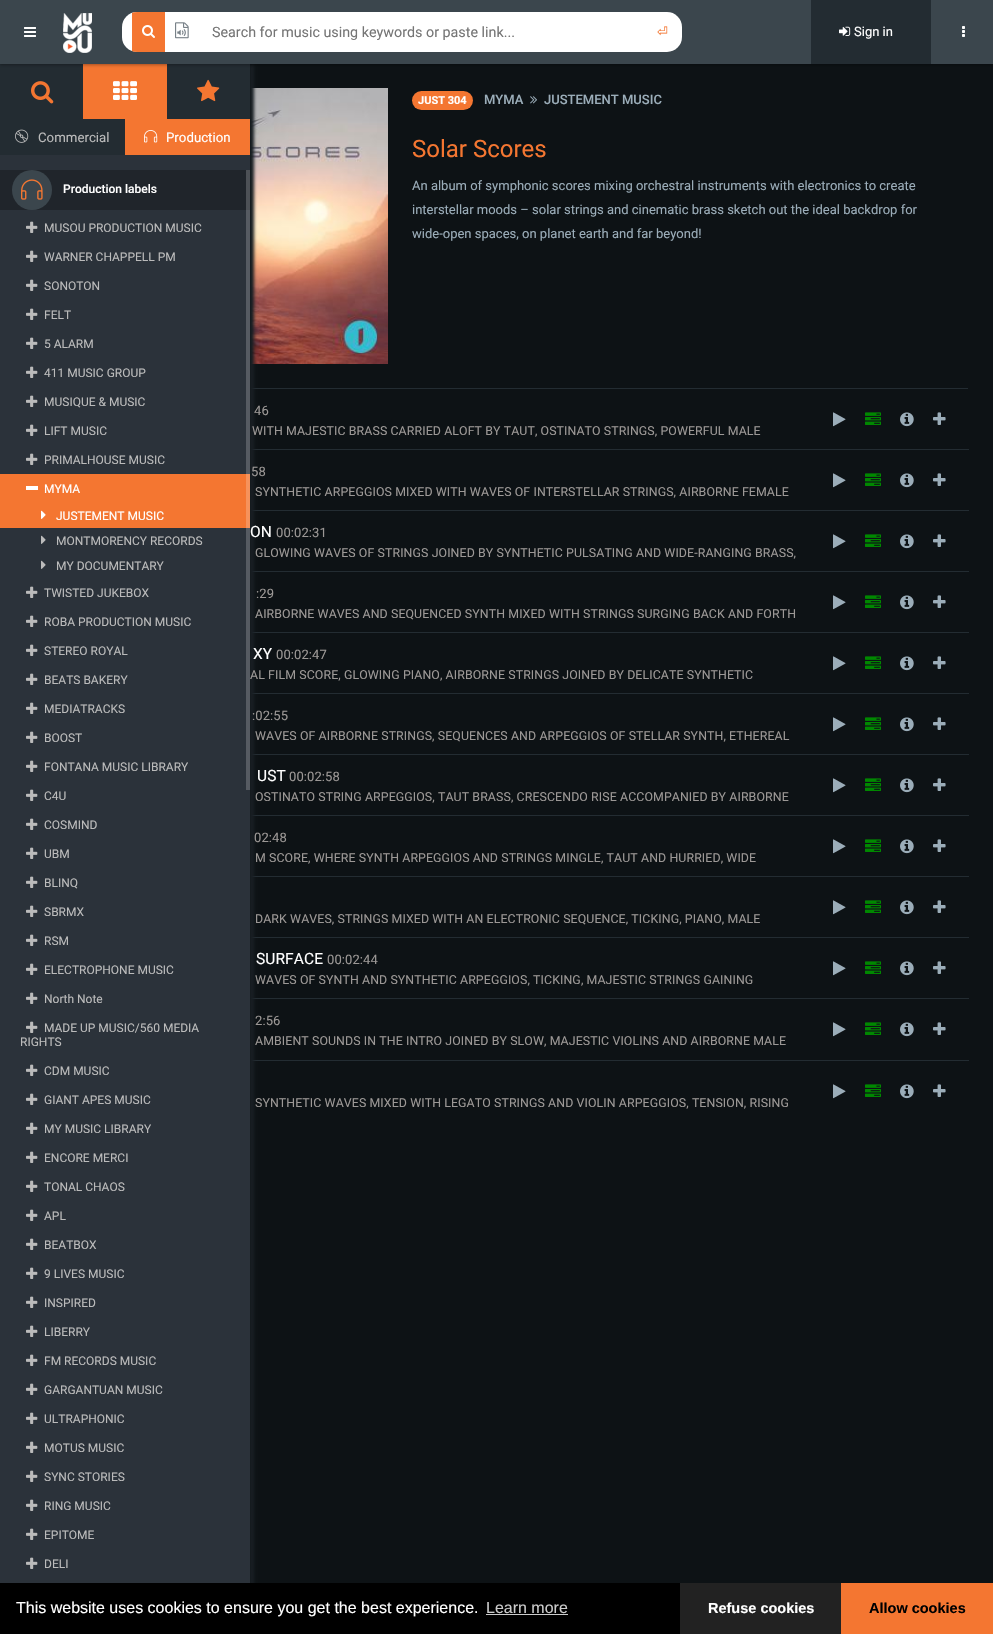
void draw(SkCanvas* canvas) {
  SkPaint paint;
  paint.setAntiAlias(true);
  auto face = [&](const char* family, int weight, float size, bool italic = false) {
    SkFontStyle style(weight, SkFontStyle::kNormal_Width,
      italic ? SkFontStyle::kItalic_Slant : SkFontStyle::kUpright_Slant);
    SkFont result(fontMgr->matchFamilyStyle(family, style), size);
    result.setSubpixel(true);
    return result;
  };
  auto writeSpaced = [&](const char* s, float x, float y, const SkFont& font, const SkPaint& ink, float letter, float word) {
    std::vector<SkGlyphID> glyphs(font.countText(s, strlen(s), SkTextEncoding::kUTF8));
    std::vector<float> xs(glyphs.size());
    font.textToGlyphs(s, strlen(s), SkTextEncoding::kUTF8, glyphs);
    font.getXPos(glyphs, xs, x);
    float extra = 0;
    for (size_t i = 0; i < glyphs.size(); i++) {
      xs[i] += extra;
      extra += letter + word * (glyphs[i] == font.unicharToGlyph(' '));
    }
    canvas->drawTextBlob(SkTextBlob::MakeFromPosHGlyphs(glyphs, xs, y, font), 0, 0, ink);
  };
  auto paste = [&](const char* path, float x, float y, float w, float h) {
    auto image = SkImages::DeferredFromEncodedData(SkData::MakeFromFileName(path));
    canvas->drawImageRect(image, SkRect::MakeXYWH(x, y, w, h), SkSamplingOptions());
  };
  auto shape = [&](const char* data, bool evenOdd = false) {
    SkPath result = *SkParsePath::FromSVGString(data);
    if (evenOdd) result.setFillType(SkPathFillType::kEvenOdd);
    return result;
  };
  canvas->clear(0xff0d1215);
  paste("img/16.png", 250, 88, 138, 276);
  {
    const struct { float x, y, w, h; SkColor color; } items[] = {
      {250, 388, 718, 1, 0xff232c32},
      {250, 449, 719, 1, 0xff232c32},
      {250, 510, 719, 1, 0xff232c32},
      {250, 571, 719, 1, 0xff232c32},
      {250, 632, 719, 1, 0xff232c32},
      {250, 693, 719, 1, 0xff232c32},
      {250, 754, 719, 1, 0xff232c32},
      {250, 815, 719, 1, 0xff232c32},
      {250, 876, 719, 1, 0xff232c32},
      {250, 937, 719, 1, 0xff232c32},
      {250, 998, 719, 1, 0xff232c32},
      {250, 1060, 719, 1, 0xff232c32},
    };
    for (auto [x, y, w, h, color] : items) {
      paint.setColor(color);
      canvas->drawRect(SkRect::MakeXYWH(x, y, w, h), paint);
    }
  }
  paint.setColor(0xff181f24);
  paint.setMaskFilter(SkMaskFilter::MakeBlur(kNormal_SkBlurStyle, 1.5f));
  canvas->drawRect(SkRect::MakeXYWH(0, 65, 254, 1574), paint);
  paint.setMaskFilter(nullptr);
  paint.setColor(0x54000000);
  paint.setMaskFilter(SkMaskFilter::MakeBlur(kNormal_SkBlurStyle, 1.5f));
  canvas->drawRect(SkRect::MakeXYWH(0, 65, 250, 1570), paint);
  paint.setMaskFilter(nullptr);
  {
    const struct { float x, y, w, h; SkColor color; } items[] = {
      {0, 64, 83, 55, 0xff232c32},
      {83, 64, 84, 55, 0xfff47631},
      {167, 64, 83, 55, 0xff232c32},
    };
    for (auto [x, y, w, h, color] : items) {
      paint.setColor(color);
      canvas->drawRect(SkRect::MakeXYWH(x, y, w, h), paint);
    }
  }
  paint.setColor(0x54000000);
  paint.setMaskFilter(SkMaskFilter::MakeBlur(kNormal_SkBlurStyle, 1.5f));
  canvas->drawRect(SkRect::MakeXYWH(0, 1, 993, 64), paint);
  paint.setMaskFilter(nullptr);
  paint.setColor(0xff3b464d);
  canvas->drawRect(SkRect::MakeXYWH(0, 0, 993, 64), paint);
  paste("img/1.png", 24, 27, 12, 10);
  paste("img/2.png", 63, 13, 29, 40);
  paint.setColor(0xffffffff);
  canvas->drawRoundRect(SkRect::MakeXYWH(122, 12, 560, 40), 15, 15, paint);
  canvas->save();
  canvas->clipPath(shape("M137 12H667C675.5 12 682 18.5 682 27V37C682 45.5 675.5 52 667 52H137C128.5 52 122 45.5 122 37V27C122 18.5 128.5 12 137 12Z"), true);
  paint.setColor(0xfff47631);
  canvas->drawRect(SkRect::MakeXYWH(132, 12, 33, 40), paint);
  canvas->restore();
  paste("img/3.png", 142, 25, 13, 13);
  paste("img/4.png", 175, 22, 14, 17);
  paint.setColor(0xff232c32);
  canvas->drawRect(SkRect::MakeXYWH(811, 0, 120, 64), paint);
  paste("img/5.png", 839, 26, 12, 10);
  paste("img/6.png", 962, 26, 3, 11);
  paint.setColor(0xff2b323a);
  canvas->drawRect(SkRect::MakeXYWH(0, 155, 250, 1428), paint);
  paste("img/7.png", 31, 81, 23, 23);
  paste("img/8.png", 113, 81, 24, 19);
  paste("img/9.png", 197, 79, 23, 23);
  paint.setColor(0xff232c32);
  canvas->drawRect(SkRect::MakeXYWH(0, 119, 125, 36), paint);
  paste("img/10.png", 15, 129, 14, 14);
  paint.setColor(0xfff47631);
  canvas->drawRect(SkRect::MakeXYWH(125, 119, 125, 36), paint);
  paste("img/11.png", 144, 130, 14, 13);
  paint.setColor(0xff20252b);
  canvas->drawRect(SkRect::MakeXYWH(0, 170, 250, 40), paint);
  paint.setColor(0xff3b464d);
  canvas->drawCircle(32, 190, 20, paint);
  paste("img/12.png", 21, 179, 22, 21);
  paste("img/13.png", 26, 221, 12, 12);
  paste("img/13.png", 26, 250, 12, 12);
  paste("img/13.png", 26, 279, 12, 12);
  paste("img/13.png", 26, 308, 12, 12);
  paste("img/13.png", 26, 337, 12, 12);
  paste("img/13.png", 26, 366, 12, 12);
  paste("img/13.png", 26, 395, 12, 12);
  paste("img/13.png", 26, 424, 12, 12);
  paste("img/13.png", 26, 453, 12, 12);
  paint.setColor(0xfff47631);
  canvas->drawRect(SkRect::MakeXYWH(0, 474, 250, 54), paint);
  paint.setColor(0xffffffff);
  canvas->drawRect(SkRect::MakeXYWH(26, 486, 12, 4), paint);
  paste("img/14.png", 41, 510, 5, 9);
  paste("img/15.png", 41, 535, 5, 9);
  paste("img/15.png", 41, 560, 5, 9);
  paste("img/13.png", 26, 586, 12, 12);
  paste("img/13.png", 26, 615, 12, 12);
  paste("img/13.png", 26, 644, 12, 12);
  paste("img/13.png", 26, 673, 12, 12);
  paste("img/13.png", 26, 702, 12, 12);
  paste("img/13.png", 26, 731, 12, 12);
  paste("img/13.png", 26, 760, 12, 12);
  paste("img/13.png", 26, 789, 12, 12);
  paste("img/13.png", 26, 818, 12, 12);
  paste("img/13.png", 26, 847, 12, 12);
  paste("img/13.png", 26, 876, 12, 12);
  paste("img/13.png", 26, 905, 12, 12);
  paste("img/13.png", 26, 934, 12, 12);
  paste("img/13.png", 26, 963, 12, 12);
  paste("img/13.png", 26, 992, 12, 12);
  paste("img/13.png", 26, 1021, 12, 12);
  paste("img/13.png", 26, 1064, 12, 12);
  paste("img/13.png", 26, 1093, 12, 12);
  paste("img/13.png", 26, 1122, 12, 12);
  paste("img/13.png", 26, 1151, 12, 12);
  paste("img/13.png", 26, 1180, 12, 12);
  paste("img/13.png", 26, 1209, 12, 12);
  paste("img/13.png", 26, 1238, 12, 12);
  paste("img/13.png", 26, 1267, 12, 12);
  paste("img/13.png", 26, 1296, 12, 12);
  paste("img/13.png", 26, 1325, 12, 12);
  paste("img/13.png", 26, 1354, 12, 12);
  paste("img/13.png", 26, 1383, 12, 12);
  paste("img/13.png", 26, 1412, 12, 12);
  paste("img/13.png", 26, 1441, 12, 12);
  paste("img/13.png", 26, 1470, 12, 12);
  paste("img/13.png", 26, 1499, 12, 12);
  paste("img/13.png", 26, 1528, 12, 12);
  paste("img/13.png", 26, 1557, 12, 12);
  paint.setColor(0x33ffffff);
  canvas->drawRect(SkRect::MakeXYWH(246, 170, 4, 620), paint);
  paint.setColor(0xfff47631);
  canvas->drawRoundRect(SkRect::MakeXYWH(412, 91, 61, 19), 9.5f, 9.5f, paint);
  paste("img/17.png", 530, 96, 7, 8);
  paste("img/18.png", 833, 412, 13, 15);
  paste("img/19.png", 865, 412, 16, 13);
  paste("img/20.png", 900, 412, 14, 15);
  paste("img/21.png", 933, 412, 13, 13);
  paste("img/18.png", 833, 473, 13, 15);
  paste("img/19.png", 865, 473, 16, 13);
  paste("img/20.png", 900, 473, 14, 15);
  paste("img/21.png", 933, 473, 13, 13);
  paste("img/18.png", 833, 534, 13, 15);
  paste("img/19.png", 865, 534, 16, 13);
  paste("img/20.png", 900, 534, 14, 15);
  paste("img/21.png", 933, 534, 13, 13);
  paste("img/18.png", 833, 595, 13, 15);
  paste("img/19.png", 865, 595, 16, 13);
  paste("img/20.png", 900, 595, 14, 15);
  paste("img/21.png", 933, 595, 13, 13);
  paste("img/18.png", 833, 656, 13, 15);
  paste("img/19.png", 865, 656, 16, 13);
  paste("img/20.png", 900, 656, 14, 15);
  paste("img/21.png", 933, 656, 13, 13);
  paste("img/18.png", 833, 717, 13, 15);
  paste("img/19.png", 865, 717, 16, 13);
  paste("img/20.png", 900, 717, 14, 15);
  paste("img/21.png", 933, 717, 13, 13);
  paste("img/18.png", 833, 778, 13, 15);
  paste("img/19.png", 865, 778, 16, 13);
  paste("img/20.png", 900, 778, 14, 15);
  paste("img/21.png", 933, 778, 13, 13);
  paste("img/18.png", 833, 839, 13, 15);
  paste("img/19.png", 865, 839, 16, 13);
  paste("img/20.png", 900, 839, 14, 15);
  paste("img/21.png", 933, 839, 13, 13);
  paste("img/18.png", 833, 900, 13, 15);
  paste("img/19.png", 865, 900, 16, 13);
  paste("img/20.png", 900, 900, 14, 15);
  paste("img/21.png", 933, 900, 13, 13);
  paste("img/18.png", 833, 961, 13, 15);
  paste("img/19.png", 865, 961, 16, 13);
  paste("img/20.png", 900, 961, 14, 15);
  paste("img/21.png", 933, 961, 13, 13);
  paste("img/18.png", 833, 1022, 13, 15);
  paste("img/19.png", 865, 1022, 16, 13);
  paste("img/20.png", 900, 1022, 14, 15);
  paste("img/21.png", 933, 1022, 13, 13);
  paste("img/18.png", 833, 1084, 13, 15);
  paste("img/19.png", 865, 1084, 16, 13);
  paste("img/20.png", 900, 1084, 14, 15);
  paste("img/21.png", 933, 1084, 13, 13);
  {
    const struct { float x, y, w, h; SkColor color; } items[] = {
      {0, 1583, 680, 51, 0xff000000},
      {486, 1614, 82, 1, 0xffcccccc},
      {680, 1583, 161, 51, 0xff222222},
      {841, 1583, 152, 51, 0xfff47631},
    };
    for (auto [x, y, w, h, color] : items) {
      paint.setColor(color);
      canvas->drawRect(SkRect::MakeXYWH(x, y, w, h), paint);
    }
  }
  auto f0 = face("Roboto", 400, 14.3f);
  paint.setColor(0xff757575);
  canvas->drawString("Search for music using keywords or paste link...", 212, 37, f0, paint);
  auto f1 = face("DejaVu Sans", 400, 13);
  paint.setColor(0xfff47631);
  canvas->drawString("⏎", 657, 36, f1, paint);
  auto f2 = face("Roboto", 400, 13);
  paint.setColor(0xffffffff);
  canvas->drawString("Sign in", 854, 36, f2, paint);
  auto f3 = face("Roboto", 400, 13.25f);
  paint.setColor(0xffbbbbbb);
  canvas->drawString("Commercial", 38, 142, f3, paint);
  paint.setColor(0xffffffff);
  canvas->drawString("Production", 166, 142, f3, paint);
  auto f4 = face("Roboto", 500, 12);
  canvas->drawString("Production labels", 63, 193, f4, paint);
  auto f5 = face("Roboto", 400, 12);
  paint.setColor(0xffbbbbbb);
  {
    const struct { const char* s; float x, y; } items[] = {
      {"MUSOU PRODUCTION MUSIC", 44, 232},
      {"WARNER CHAPPELL PM", 44, 261},
      {"SONOTON", 44, 290},
      {"FELT", 44, 319},
      {"5 ALARM", 44, 348},
      {"411 MUSIC GROUP", 44, 377},
      {"MUSIQUE & MUSIC", 44, 406},
      {"LIFT MUSIC", 44, 435},
      {"PRIMALHOUSE MUSIC", 44, 464},
    };
    for (auto [s, x, y] : items) {
      canvas->drawString(s, x, y, f5, paint);
    }
  }
  paint.setColor(0xffffffff);
  canvas->drawString("MYMA", 44, 493, f5, paint);
  canvas->drawString("JUSTEMENT MUSIC", 56, 520, f5, paint);
  paint.setColor(0xffbbbbbb);
  {
    const struct { const char* s; float x, y; } items[] = {
      {"MONTMORENCY RECORDS", 56, 545},
      {"MY DOCUMENTARY", 56, 570},
      {"TWISTED JUKEBOX", 44, 597},
      {"ROBA PRODUCTION MUSIC", 44, 626},
      {"STEREO ROYAL", 44, 655},
      {"BEATS BAKERY", 44, 684},
      {"MEDIATRACKS", 44, 713},
      {"BOOST", 44, 742},
      {"FONTANA MUSIC LIBRARY", 44, 771},
      {"C4U", 44, 800},
      {"COSMIND", 44, 829},
      {"UBM", 44, 858},
      {"BLINQ", 44, 887},
      {"SBRMX", 44, 916},
      {"RSM", 44, 945},
      {"ELECTROPHONE MUSIC", 44, 974},
      {"North Note", 44, 1003},
      {"MADE UP MUSIC/560 MEDIA", 44, 1032},
      {"RIGHTS", 20, 1046},
      {"CDM MUSIC", 44, 1075},
      {"GIANT APES MUSIC", 44, 1104},
      {"MY MUSIC LIBRARY", 44, 1133},
      {"ENCORE MERCI", 44, 1162},
      {"TONAL CHAOS", 44, 1191},
      {"APL", 44, 1220},
      {"BEATBOX", 44, 1249},
      {"9 LIVES MUSIC", 44, 1278},
      {"INSPIRED", 44, 1307},
      {"LIBERRY", 44, 1336},
      {"FM RECORDS MUSIC", 44, 1365},
      {"GARGANTUAN MUSIC", 44, 1394},
      {"ULTRAPHONIC", 44, 1423},
      {"MOTUS MUSIC", 44, 1452},
      {"SYNC STORIES", 44, 1481},
      {"RING MUSIC", 44, 1510},
      {"EPITOME", 44, 1539},
      {"DELI", 44, 1568},
    };
    for (auto [s, x, y] : items) {
      canvas->drawString(s, x, y, f5, paint);
    }
  }
  auto f6 = face("Roboto", 700, 11);
  paint.setColor(0xffffffff);
  canvas->drawString("JUST 304", 418, 104, f6, paint);
  auto f7 = face("Roboto", 500, 13);
  paint.setColor(0xff9badb9);
  canvas->drawString("MYMA", 484, 104, f7, paint);
  canvas->drawString("JUSTEMENT MUSIC", 544, 104, f7, paint);
  auto f8 = face("Roboto", 400, 24);
  paint.setColor(0xfff47631);
  canvas->drawString("Solar Scores", 412, 157, f8, paint);
  paint.setColor(0xff9badb9);
  {
    const struct { const char* s; float x, y; } items[] = {
      {"An album of symphonic scores mixing orchestral instruments with electronics to create", 412, 190},
      {"interstellar moods – solar strings and cinematic brass sketch out the ideal backdrop for", 412, 214},
      {"wide-open spaces, on planet earth and far beyond!", 412, 238},
    };
    for (auto [s, x, y] : items) {
      canvas->drawString(s, x, y, f2, paint);
    }
  }
  paint.setColor(0xff9c9896);
  writeSpaced("46", 254, 415, f2, paint, 0.1f, 0);
  auto f9 = face("Roboto", 400, 12.35f);
  writeSpaced("WITH MAJESTIC BRASS CARRIED ALOFT BY TAUT, OSTINATO STRINGS, POWERFUL MALE", 252, 435, f9, paint, 0.1f, 0);
  writeSpaced("58", 251, 476, f2, paint, 0.1f, 0);
  writeSpaced("SYNTHETIC ARPEGGIOS MIXED WITH WAVES OF INTERSTELLAR STRINGS, AIRBORNE FEMALE", 255, 496, f9, paint, 0.1f, 0);
  auto f10 = face("Roboto", 400, 15.5f);
  paint.setColor(0xffffffff);
  writeSpaced("ON", 250, 537, f10, paint, 0.1f, 0);
  paint.setColor(0xff9c9896);
  writeSpaced("00:02:31", 276, 537, f2, paint, 0.1f, 0);
  writeSpaced("GLOWING WAVES OF STRINGS JOINED BY SYNTHETIC PULSATING AND WIDE-RANGING BRASS,", 255, 557, f9, paint, 0.1f, 0);
  writeSpaced(":29", 256, 598, f2, paint, 0.1f, 0);
  writeSpaced("AIRBORNE WAVES AND SEQUENCED SYNTH MIXED WITH STRINGS SURGING BACK AND FORTH", 255, 618, f9, paint, 0.1f, 0);
  paint.setColor(0xffffffff);
  writeSpaced("XY", 253, 659, f10, paint, 0.1f, 0);
  paint.setColor(0xff9c9896);
  writeSpaced("00:02:47", 276, 659, f2, paint, 0.1f, 0);
  writeSpaced("AL FILM SCORE, GLOWING PIANO, AIRBORNE STRINGS JOINED BY DELICATE SYNTHETIC", 250, 679, f9, paint, 0.1f, 0);
  writeSpaced(":02:55", 252, 720, f2, paint, 0.1f, 0);
  writeSpaced("WAVES OF AIRBORNE STRINGS, SEQUENCES AND ARPEGGIOS OF STELLAR SYNTH, ETHEREAL", 255, 740, f9, paint, 0.1f, 0);
  paint.setColor(0xffffffff);
  writeSpaced("UST", 257, 781, f10, paint, 0.1f, 0);
  paint.setColor(0xff9c9896);
  writeSpaced("00:02:58", 289, 781, f2, paint, 0.1f, 0);
  writeSpaced("OSTINATO STRING ARPEGGIOS, TAUT BRASS, CRESCENDO RISE ACCOMPANIED BY AIRBORNE", 255, 801, f9, paint, 0.1f, 0);
  writeSpaced("02:48", 254, 842, f2, paint, 0.1f, 0);
  writeSpaced("M SCORE, WHERE SYNTH ARPEGGIOS AND STRINGS MINGLE, TAUT AND HURRIED, WIDE", 255, 862, f9, paint, 0.1f, 0);
  writeSpaced("DARK WAVES, STRINGS MIXED WITH AN ELECTRONIC SEQUENCE, TICKING, PIANO, MALE", 255, 923, f9, paint, 0.1f, 0);
  paint.setColor(0xffffffff);
  writeSpaced("SURFACE", 256, 964, f10, paint, 0.1f, 0);
  paint.setColor(0xff9c9896);
  writeSpaced("00:02:44", 327, 964, f2, paint, 0.1f, 0);
  writeSpaced("WAVES OF SYNTH AND SYNTHETIC ARPEGGIOS, TICKING, MAJESTIC STRINGS GAINING", 255, 984, f9, paint, 0.1f, 0);
  writeSpaced("2:56", 255, 1025, f2, paint, 0.1f, 0);
  writeSpaced("AMBIENT SOUNDS IN THE INTRO JOINED BY SLOW, MAJESTIC VIOLINS AND AIRBORNE MALE", 255, 1045, f9, paint, 0.1f, 0);
  writeSpaced("SYNTHETIC WAVES MIXED WITH LEGATO STRINGS AND VIOLIN ARPEGGIOS, TENSION, RISING", 255, 1107, f9, paint, 0.1f, 0);
  auto f11 = face("Liberation Sans", 400, 16);
  paint.setColor(0xffffffff);
  canvas->drawString("This website uses cookies to ensure you get the best experience.", 16, 1613, f11, paint);
  paint.setColor(0xffcccccc);
  canvas->drawString("Learn more", 486, 1613, f11, paint);
  auto f12 = face("Liberation Sans", 700, 14.5f);
  paint.setColor(0xffffffff);
  canvas->drawString("Refuse cookies", 708, 1613, f12, paint);
  paint.setColor(0xff000000);
  canvas->drawString("Allow cookies", 869, 1613, f12, paint);
}
